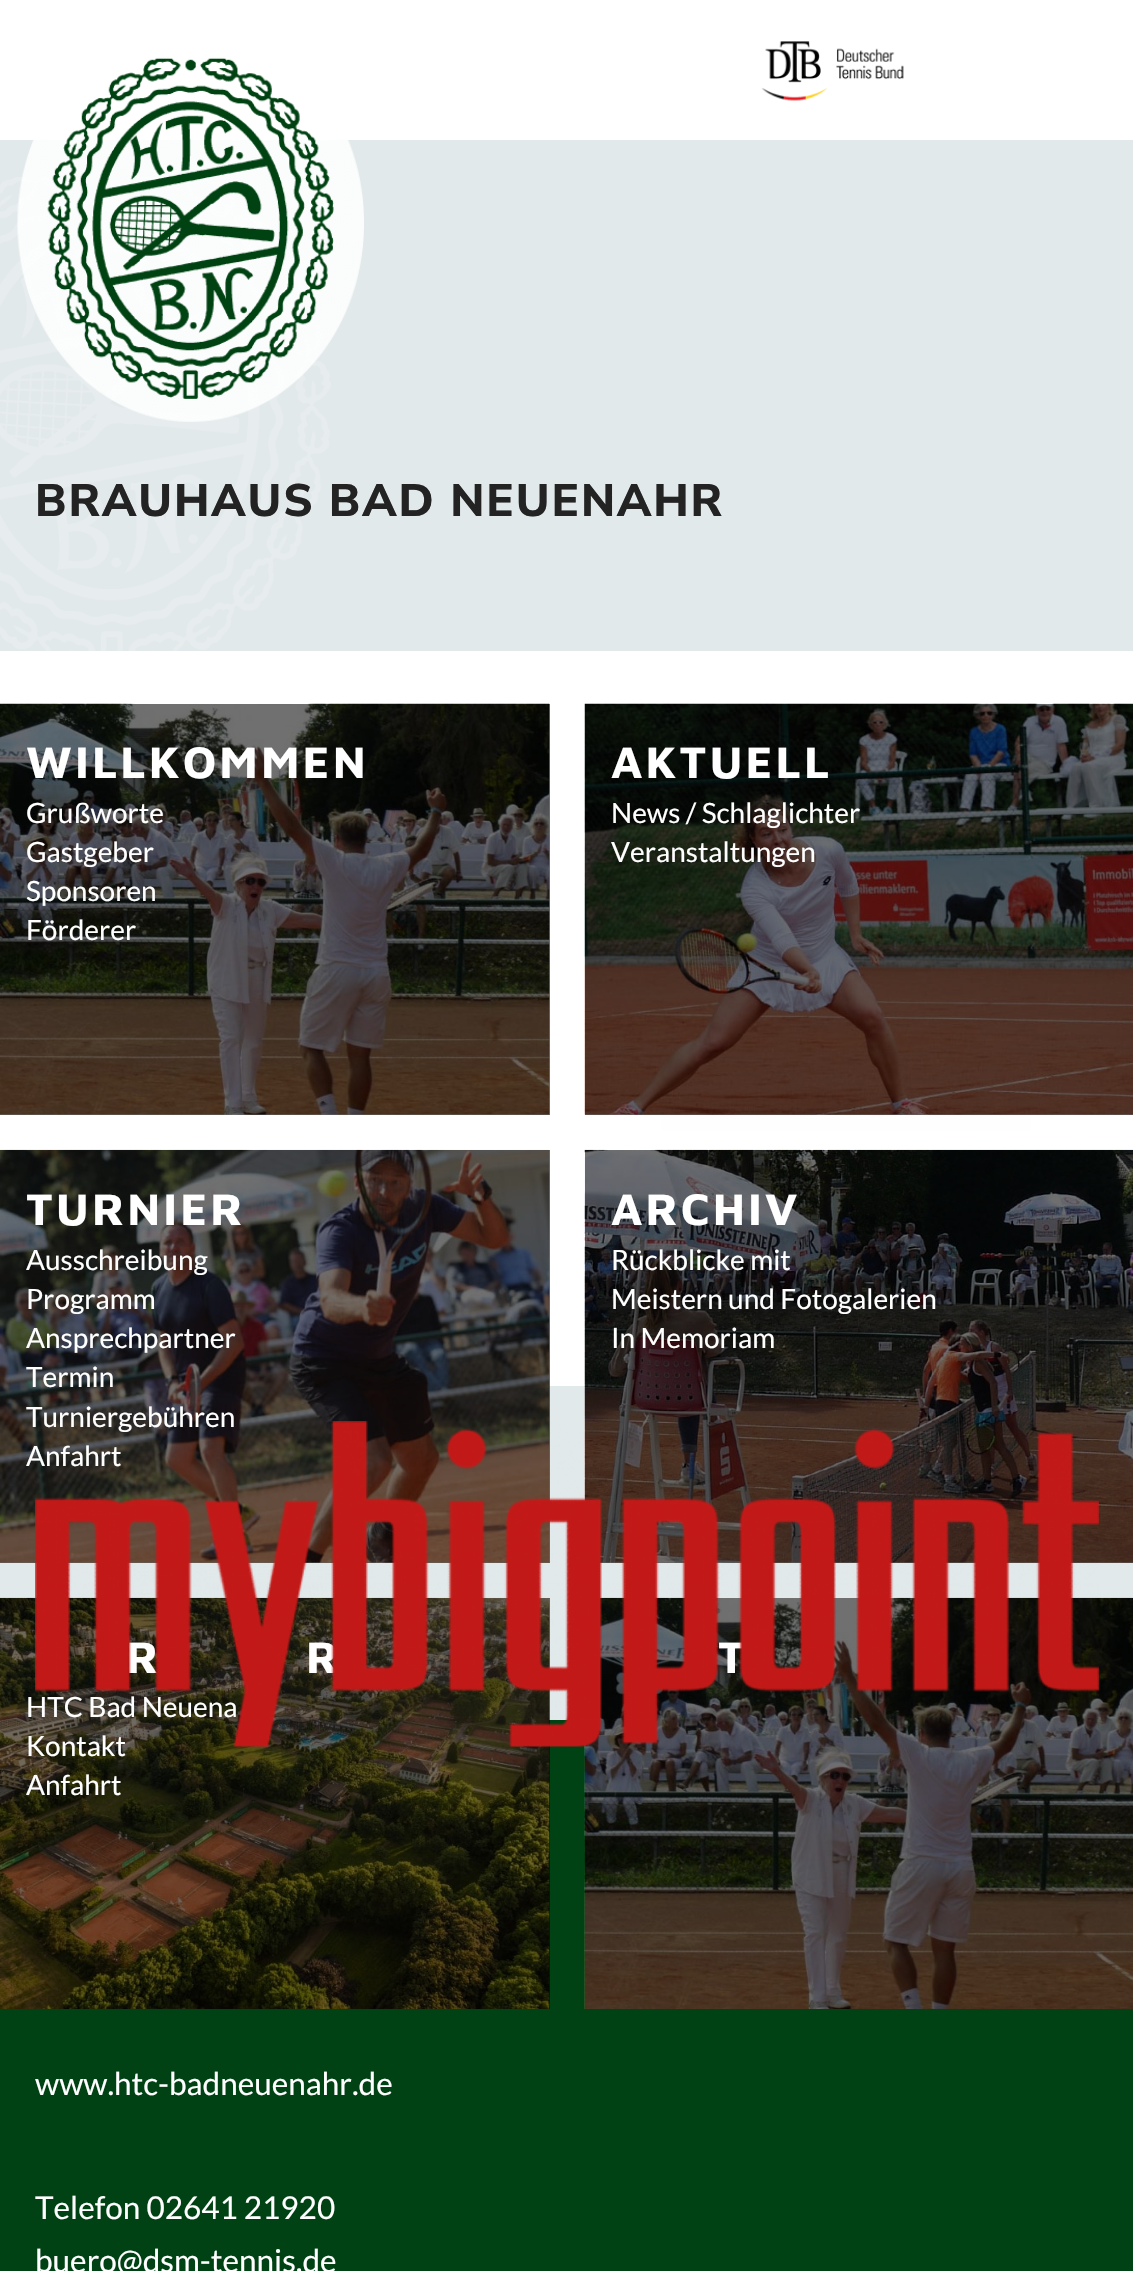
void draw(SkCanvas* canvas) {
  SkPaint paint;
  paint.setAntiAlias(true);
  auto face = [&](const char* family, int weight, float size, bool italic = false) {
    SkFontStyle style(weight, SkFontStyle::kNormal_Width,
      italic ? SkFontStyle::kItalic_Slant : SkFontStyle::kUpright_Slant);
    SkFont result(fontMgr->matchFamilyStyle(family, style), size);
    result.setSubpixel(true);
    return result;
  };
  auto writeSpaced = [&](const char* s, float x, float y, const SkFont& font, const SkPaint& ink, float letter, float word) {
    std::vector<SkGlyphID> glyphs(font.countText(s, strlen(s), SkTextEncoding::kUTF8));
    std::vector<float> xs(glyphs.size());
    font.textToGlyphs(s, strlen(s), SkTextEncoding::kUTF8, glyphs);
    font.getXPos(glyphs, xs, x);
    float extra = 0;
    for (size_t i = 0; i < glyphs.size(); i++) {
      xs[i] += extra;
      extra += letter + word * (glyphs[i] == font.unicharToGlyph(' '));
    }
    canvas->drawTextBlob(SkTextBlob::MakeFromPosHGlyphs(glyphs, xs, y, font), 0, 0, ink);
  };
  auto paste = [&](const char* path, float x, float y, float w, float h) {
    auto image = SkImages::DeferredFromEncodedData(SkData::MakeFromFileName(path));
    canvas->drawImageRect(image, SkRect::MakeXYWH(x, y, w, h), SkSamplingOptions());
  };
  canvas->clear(0xffe2e9ea);
  {
    const struct { float x, y, w, h; SkColor color; } items[] = {
      {549, 1598, 1, 122, 0xff636767},
      {599, 1562, 534, 1, 0xff636767},
      {0, 1386, 550, 177, 0xff636767},
      {0, 0, 1133, 140, 0xffffffff},
    };
    for (auto [x, y, w, h, color] : items) {
      paint.setColor(color);
      canvas->drawRect(SkRect::MakeXYWH(x, y, w, h), paint);
    }
  }
  paste("img/1.png", 761, 41, 143, 60);
  paste("img/3.png", 0, 177, 331, 474);
  paste("img/2.png", 17, 57, 347, 365);
  {
    const struct { float x, y, w, h; SkColor color; } items[] = {
      {0, 651, 1133, 735, 0xffffffff},
      {549, 1150, 1, 236, 0xff707070},
      {0, 704, 550, 411, 0xff707070},
    };
    for (auto [x, y, w, h, color] : items) {
      paint.setColor(color);
      canvas->drawRect(SkRect::MakeXYWH(x, y, w, h), paint);
    }
  }
  paste("img/4.png", 0, 703, 550, 412);
  paste("img/10.png", 661, 1114, 370, 17);
  paste("img/5.png", 584, 703, 549, 412);
  paint.setColor(0x8f000000);
  canvas->drawRect(SkRect::MakeXYWH(585, 704, 548, 411), paint);
  paste("img/6.png", 0, 1149, 550, 414);
  paste("img/7.png", 584, 1149, 549, 414);
  paint.setColor(0xff004214);
  canvas->drawRect(SkRect::MakeXYWH(0, 1720, 1133, 551), paint);
  paint.setColor(0xff001d09);
  canvas->drawRect(SkRect::MakeXYWH(549, 1720, 1, 289), paint);
  paste("img/8.png", 0, 1597, 550, 412);
  paste("img/9.png", 584, 1597, 549, 412);
  auto f0 = face("Nunito Sans", 800, 45.5f);
  paint.setColor(0xff232323);
  writeSpaced("BRAUHAUS BAD NEUENAHR", 35, 516, f0, paint, 1.9f, 0);
  auto f1 = face("Maven Pro", 700, 45.5f);
  paint.setColor(0xffffffff);
  writeSpaced("WILLKOMMEN", 26, 778, f1, paint, 3.1f, 0);
  auto f2 = face("Lato", 400, 28);
  {
    const struct { const char* s; float x, y; } items[] = {
      {"Grußworte", 26, 823},
      {"Gastgeber", 26, 862},
      {"Sponsoren", 26, 901},
      {"Förderer", 26, 940},
    };
    for (auto [s, x, y] : items) {
      canvas->drawString(s, x, y, f2, paint);
    }
  }
  writeSpaced("AKTUELL", 611, 778, f1, paint, 3.1f, 0);
  canvas->drawString("News / Schlaglichter", 611, 823, f2, paint);
  canvas->drawString("Veranstaltungen", 611, 862, f2, paint);
  writeSpaced("TURNIER", 26, 1225, f1, paint, 3.1f, 0);
  {
    const struct { const char* s; float x, y; } items[] = {
      {"Ausschreibung", 26, 1270},
      {"Programm", 26, 1309},
      {"Ansprechpartner", 26, 1348},
      {"Termin", 26, 1387},
      {"Turniergebühren", 26, 1427},
      {"Anfahrt", 26, 1466},
    };
    for (auto [s, x, y] : items) {
      canvas->drawString(s, x, y, f2, paint);
    }
  }
  writeSpaced("ARCHIV", 611, 1225, f1, paint, 3.1f, 0);
  {
    const struct { const char* s; float x, y; } items[] = {
      {"Rückblicke mit", 611, 1270},
      {"Meistern und Fotogalerien", 611, 1309},
      {"In Memoriam", 611, 1348},
    };
    for (auto [s, x, y] : items) {
      canvas->drawString(s, x, y, f2, paint);
    }
  }
  writeSpaced("R", 126, 1673, f1, paint, 3.1f, 0);
  writeSpaced("R", 306, 1673, f1, paint, 3.1f, 0);
  {
    const struct { const char* s; float x, y; } items[] = {
      {"HTC Bad Neuena", 26, 1717},
      {"Kontakt", 26, 1756},
      {"Anfahrt", 26, 1795},
    };
    for (auto [s, x, y] : items) {
      canvas->drawString(s, x, y, f2, paint);
    }
  }
  writeSpaced("T", 718, 1673, f1, paint, 3.1f, 0);
  paste("img/11.png", 35, 1421, 1064, 326);
  auto f3 = face("Lato", 400, 31.5f);
  {
    const struct { const char* s; float x, y; } items[] = {
      {"www.htc-badneuenahr.de", 35, 2095},
      {"Telefon 02641 21920", 35, 2219},
      {"buero@dsm-tennis.de", 35, 2272},
    };
    for (auto [s, x, y] : items) {
      canvas->drawString(s, x, y, f3, paint);
    }
  }
}
